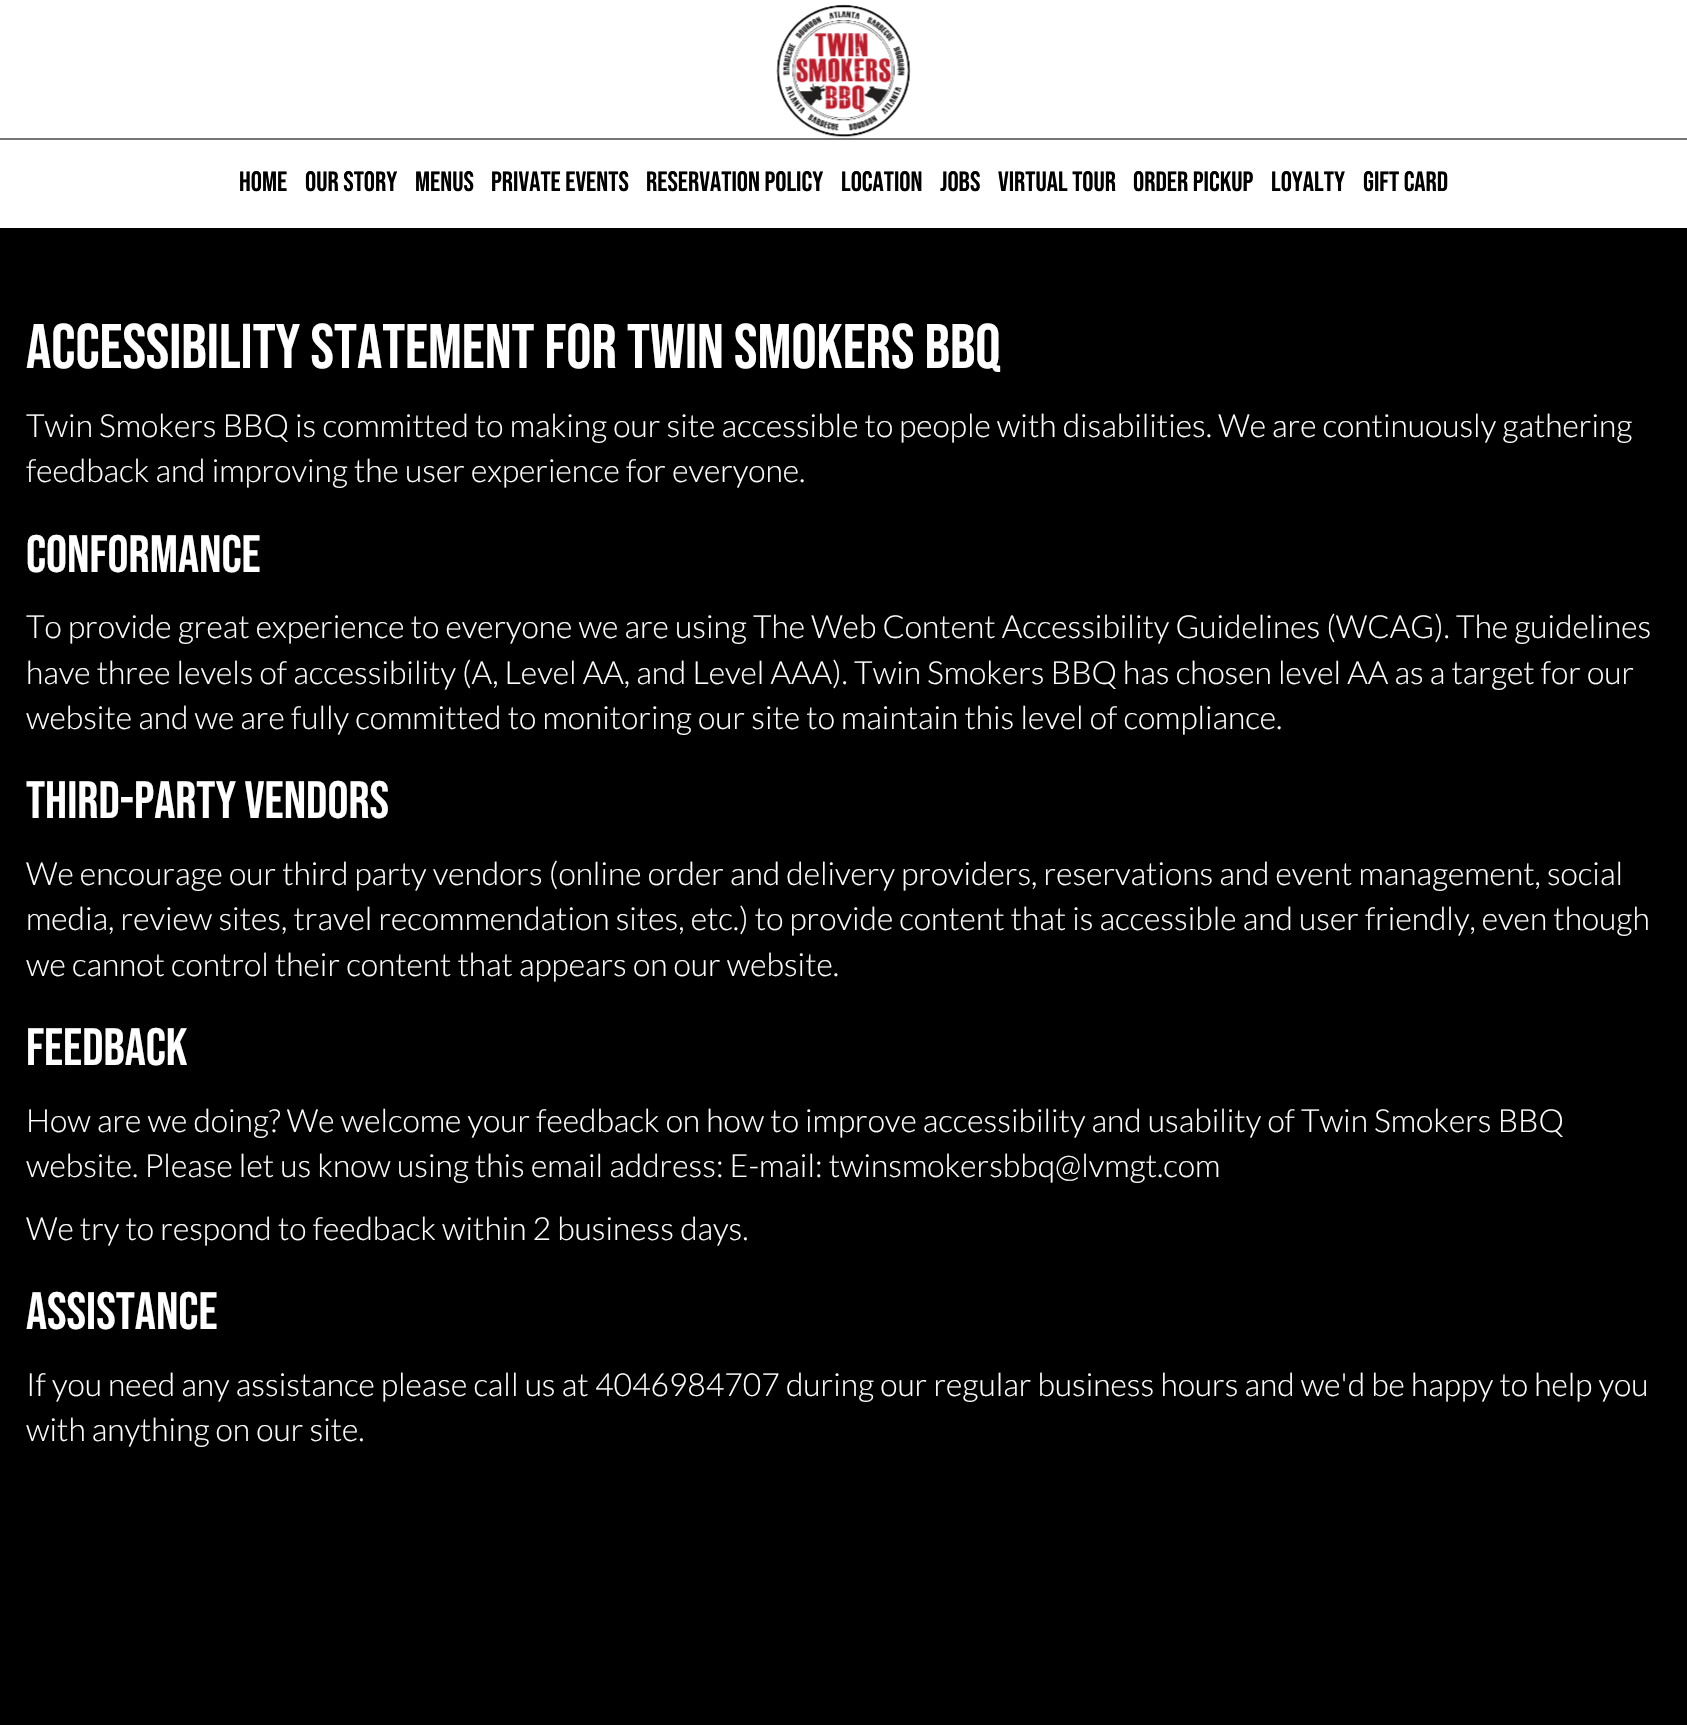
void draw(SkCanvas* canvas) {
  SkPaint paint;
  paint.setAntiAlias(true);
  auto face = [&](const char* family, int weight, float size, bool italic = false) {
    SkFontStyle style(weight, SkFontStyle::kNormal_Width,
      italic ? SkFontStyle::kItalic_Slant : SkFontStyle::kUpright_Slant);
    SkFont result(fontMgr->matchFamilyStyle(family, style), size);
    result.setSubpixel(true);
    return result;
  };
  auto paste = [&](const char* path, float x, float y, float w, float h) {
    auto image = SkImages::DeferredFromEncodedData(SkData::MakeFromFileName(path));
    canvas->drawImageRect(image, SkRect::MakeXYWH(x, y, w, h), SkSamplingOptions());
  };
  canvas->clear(0xff000000);
  paint.setColor(0xffffffff);
  canvas->drawRect(SkRect::MakeXYWH(0, 0, 1687, 138), paint);
  paint.setColor(0xff757575);
  canvas->drawRect(SkRect::MakeXYWH(0, 138, 1687, 2), paint);
  paste("img/1.png", 776, 4, 135, 134);
  paint.setColor(0xffffffff);
  canvas->drawRect(SkRect::MakeXYWH(0, 140, 1687, 88), paint);
  auto f0 = face("Bebas Neue", 400, 28);
  paint.setColor(0xff000000);
  {
    const struct { const char* s; float x, y; } items[] = {
      {"HOME", 239, 191},
      {"OUR STORY", 305, 191},
      {"MENUS", 415, 191},
      {"PRIVATE EVENTS", 491, 191},
      {"RESERVATION POLICY", 646, 191},
      {"LOCATION", 841, 191},
      {"JOBS", 940, 191},
      {"VIRTUAL TOUR", 998, 191},
      {"ORDER PICKUP", 1133, 191},
      {"LOYALTY", 1271, 191},
      {"GIFT CARD", 1363, 191},
    };
    for (auto [s, x, y] : items) {
      canvas->drawString(s, x, y, f0, paint);
    }
  }
  auto f1 = face("Bebas Neue", 400, 63);
  paint.setColor(0xffffffff);
  canvas->drawString("Accessibility Statement for Twin Smokers BBQ", 26, 368, f1, paint);
  auto f2 = face("Lato", 300, 31.85f);
  canvas->drawString("Twin Smokers BBQ is committed to making our site accessible to people with disabilities. We are continuously gathering", 26, 437, f2, paint);
  canvas->drawString("feedback and improving the user experience for everyone.", 26, 482, f2, paint);
  auto f3 = face("Bebas Neue", 400, 52.5f);
  canvas->drawString("Conformance", 26, 572, f3, paint);
  {
    const struct { const char* s; float x, y; } items[] = {
      {"To provide great experience to everyone we are using The Web Content Accessibility Guidelines (WCAG). The guidelines", 26, 638},
      {"have three levels of accessibility (A, Level AA, and Level AAA). Twin Smokers BBQ has chosen level AA as a target for our", 26, 684},
      {"website and we are fully committed to monitoring our site to maintain this level of compliance.", 26, 729},
    };
    for (auto [s, x, y] : items) {
      canvas->drawString(s, x, y, f2, paint);
    }
  }
  canvas->drawString("Third-Party Vendors", 26, 818, f3, paint);
  {
    const struct { const char* s; float x, y; } items[] = {
      {"We encourage our third party vendors (online order and delivery providers, reservations and event management, social", 26, 885},
      {"media, review sites, travel recommendation sites, etc.) to provide content that is accessible and user friendly, even though", 26, 930},
      {"we cannot control their content that appears on our website.", 26, 976},
    };
    for (auto [s, x, y] : items) {
      canvas->drawString(s, x, y, f2, paint);
    }
  }
  canvas->drawString("Feedback", 26, 1065, f3, paint);
  {
    const struct { const char* s; float x, y; } items[] = {
      {"How are we doing? We welcome your feedback on how to improve accessibility and usability of Twin Smokers BBQ", 26, 1132},
      {"website. Please let us know using this email address: E-mail: twinsmokersbbq@lvmgt.com", 26, 1177},
      {"We try to respond to feedback within 2 business days.", 26, 1240},
    };
    for (auto [s, x, y] : items) {
      canvas->drawString(s, x, y, f2, paint);
    }
  }
  canvas->drawString("Assistance", 26, 1329, f3, paint);
  {
    const struct { const char* s; float x, y; } items[] = {
      {"If you need any assistance please call us at", 26, 1396},
      {"4046984707 during our regular business hours and we'd be happy to help you", 595, 1396},
      {"with anything on our site.", 26, 1441},
    };
    for (auto [s, x, y] : items) {
      canvas->drawString(s, x, y, f2, paint);
    }
  }
}
